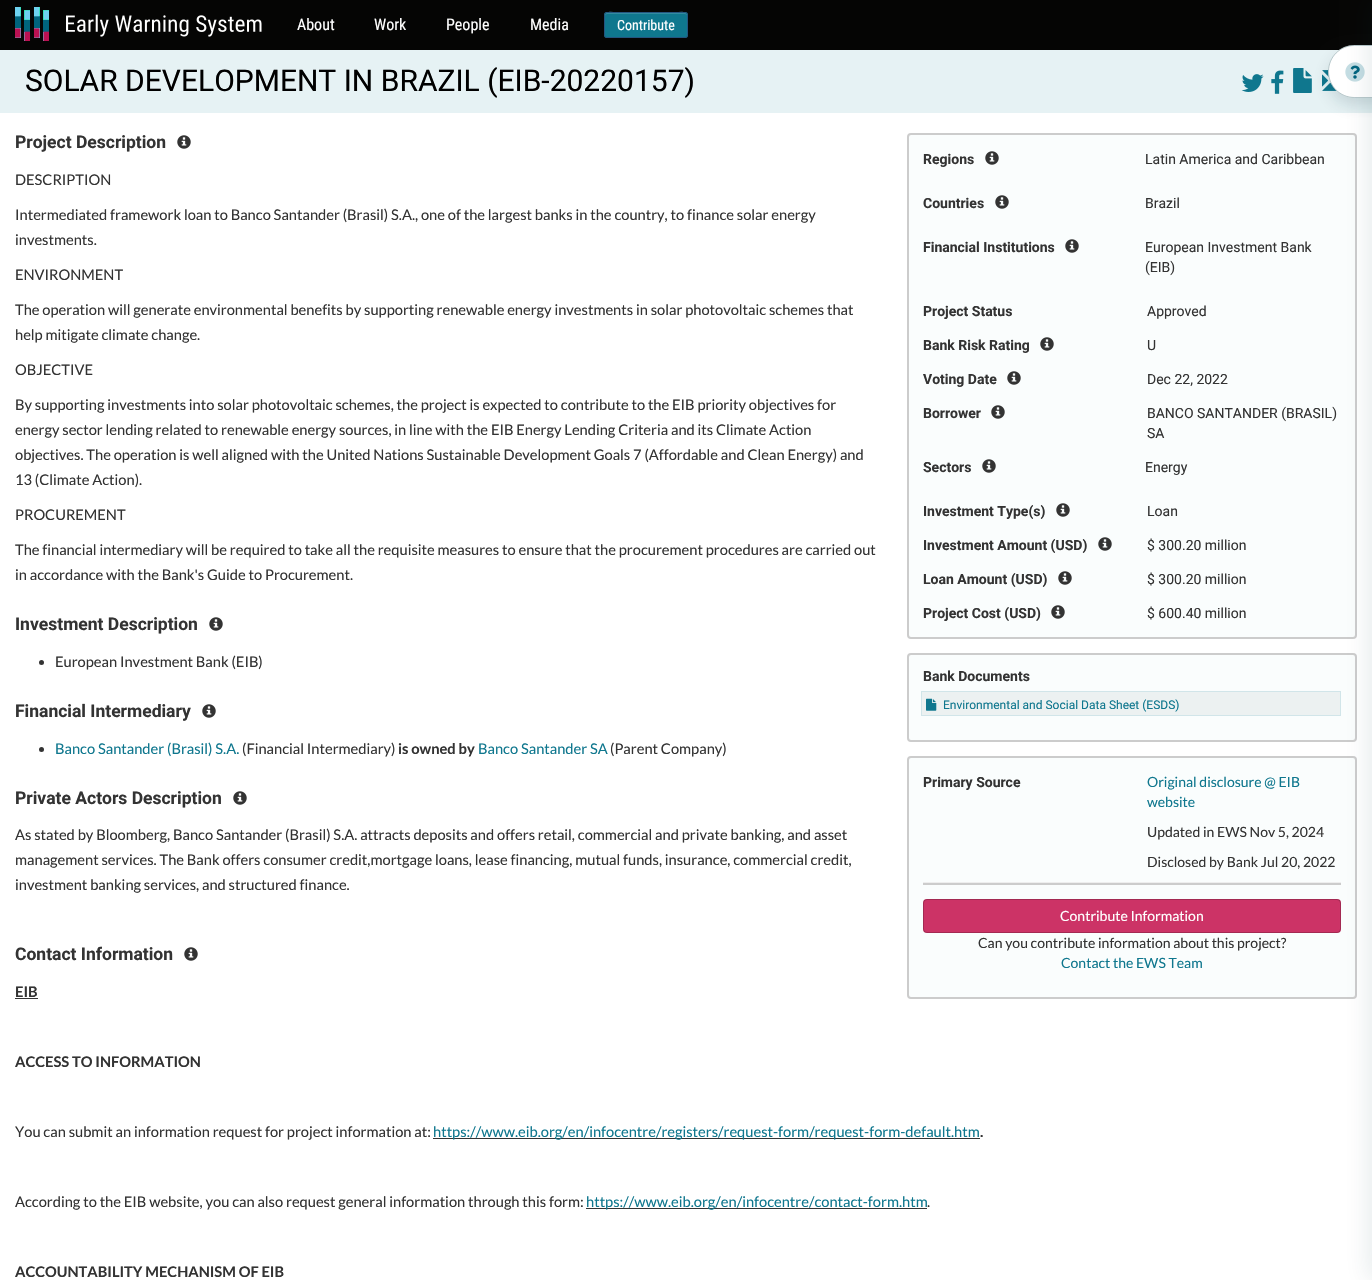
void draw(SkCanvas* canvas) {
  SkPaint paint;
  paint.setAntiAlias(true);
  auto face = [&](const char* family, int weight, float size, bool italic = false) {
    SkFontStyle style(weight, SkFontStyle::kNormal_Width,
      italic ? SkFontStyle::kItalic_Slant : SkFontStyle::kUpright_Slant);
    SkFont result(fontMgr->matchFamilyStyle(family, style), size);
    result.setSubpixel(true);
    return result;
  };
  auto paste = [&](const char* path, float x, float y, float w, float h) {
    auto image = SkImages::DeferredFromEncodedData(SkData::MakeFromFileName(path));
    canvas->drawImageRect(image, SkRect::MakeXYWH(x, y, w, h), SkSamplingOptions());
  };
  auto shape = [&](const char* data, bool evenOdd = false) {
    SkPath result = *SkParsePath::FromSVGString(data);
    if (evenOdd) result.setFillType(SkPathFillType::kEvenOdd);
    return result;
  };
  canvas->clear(0xffffffff);
  paint.setColor(0xff050504);
  canvas->drawRect(SkRect::MakeXYWH(0, 0, 1372, 50), paint);
  paste("img/1.png", 15, 7, 247, 34);
  paint.setColor(0xff0f778e);
  canvas->drawRoundRect(SkRect::MakeXYWH(604, 12, 84, 26), 3, 3, paint);
  paint.setColor(0xff338b9f);
  canvas->drawPath(shape("M607 14H685C686 14 687 15 687 16C687 9 675 13 672 13H620C617 13 605 9 605 16C605 15 606 14 607 14Z"), paint);
  paint.setStroke(true);
  paint.setStrokeWidth(1);
  paint.setColor(0xff245580);
  canvas->drawRoundRect(SkRect::MakeXYWH(604.5f, 12.5f, 83, 25), 2.5f, 2.5f, paint);
  paint.setStroke(false);
  paint.setColor(0xffe6f2f4);
  canvas->drawRect(SkRect::MakeXYWH(0, 50, 1372, 63), paint);
  paste("img/5.png", 1322, 70, 15, 21);
  paste("img/4.png", 1293, 68, 19, 25);
  paint.setColor(0x260e3841);
  paint.setMaskFilter(SkMaskFilter::MakeBlur(kNormal_SkBlurStyle, 8));
  canvas->drawRoundRect(SkRect::MakeXYWH(1328, 53, 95, 53), 26.5f, 26.5f, paint);
  paint.setMaskFilter(nullptr);
  paint.setColor(0xffffffff);
  canvas->drawPath(shape("M1354.5 45H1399V98H1354.5C1340 98 1328 86 1328 71.5C1328 57 1340 45 1354.5 45Z"), paint);
  paint.setStroke(true);
  paint.setColor(0x4d134954);
  canvas->drawPath(shape("M1354.5 45.5H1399.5V97.5H1354.5C1340 97.5 1328.5 86 1328.5 71.5C1328.5 57 1340 45.5 1354.5 45.5Z"), paint);
  paste("img/6.png", 1345, 62, 20, 20);
  paint.setStroke(false);
  paint.setColor(0xfffafdfd);
  canvas->drawRoundRect(SkRect::MakeXYWH(908, 134, 448, 504), 3, 3, paint);
  paint.setStroke(true);
  paint.setStrokeWidth(2);
  paint.setColor(0xffcccccc);
  canvas->drawRoundRect(SkRect::MakeXYWH(908, 134, 448, 504), 3, 3, paint);
  paint.setStroke(false);
  paint.setColor(0xfffafdfd);
  canvas->drawRoundRect(SkRect::MakeXYWH(908, 654, 448, 87), 3, 3, paint);
  paint.setStroke(true);
  paint.setColor(0xffcccccc);
  canvas->drawRoundRect(SkRect::MakeXYWH(908, 654, 448, 87), 3, 3, paint);
  paint.setStroke(false);
  paint.setColor(0xffecf1f1);
  canvas->drawRect(SkRect::MakeXYWH(921.5f, 691.5f, 419, 24), paint);
  paint.setStroke(true);
  paint.setStrokeWidth(1);
  paint.setColor(0xffd1e5e9);
  canvas->drawRect(SkRect::MakeXYWH(921.5f, 691.5f, 419, 24), paint);
  paint.setStroke(false);
  paint.setColor(0xfffafdfd);
  canvas->drawRoundRect(SkRect::MakeXYWH(908, 757, 448, 241), 3, 3, paint);
  paint.setStroke(true);
  paint.setStrokeWidth(2);
  paint.setColor(0xffcccccc);
  canvas->drawRoundRect(SkRect::MakeXYWH(908, 757, 448, 241), 3, 3, paint);
  paint.setStroke(false);
  canvas->drawRect(SkRect::MakeXYWH(923, 883, 418, 2), paint);
  paint.setColor(0xffeeeeee);
  canvas->drawRect(SkRect::MakeXYWH(923, 882, 418, 1), paint);
  paint.setColor(0xffcc3366);
  canvas->drawRoundRect(SkRect::MakeXYWH(923, 899, 418, 34), 4, 4, paint);
  paint.setStroke(true);
  paint.setStrokeWidth(1);
  paint.setColor(0x33000000);
  canvas->drawRoundRect(SkRect::MakeXYWH(923.5f, 899.5f, 417, 33), 3.5f, 3.5f, paint);
  paint.setStroke(false);
  paint.setColor(0x1a0e3841);
  paint.setMaskFilter(SkMaskFilter::MakeBlur(kNormal_SkBlurStyle, 12));
  canvas->drawRect(SkRect::MakeXYWH(1368, 0, 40, 1280), paint);
  paint.setMaskFilter(nullptr);
  paste("img/2.png", 1241, 74, 23, 18);
  paste("img/3.png", 1271, 70, 13, 24);
  paste("img/7.png", 177, 135, 14, 14);
  paste("img/8.png", 985, 151, 14, 14);
  paste("img/8.png", 995, 195, 14, 14);
  paste("img/8.png", 1065, 239, 14, 14);
  paste("img/8.png", 1040, 337, 14, 14);
  paste("img/8.png", 1007, 371, 14, 14);
  paste("img/8.png", 991, 405, 14, 14);
  paste("img/8.png", 982, 459, 14, 14);
  paste("img/8.png", 1056, 503, 14, 14);
  paste("img/8.png", 1098, 537, 14, 14);
  paste("img/8.png", 1058, 571, 14, 14);
  paste("img/8.png", 1051, 605, 14, 14);
  paste("img/9.png", 926, 698, 11, 13);
  paste("img/7.png", 209, 617, 14, 14);
  paint.setColor(0xff333333);
  canvas->drawCircle(41.5f, 662.5f, 2.5f, paint);
  paste("img/7.png", 202, 704, 14, 14);
  canvas->drawCircle(41.5f, 749.5f, 2.5f, paint);
  paste("img/7.png", 233, 791, 14, 14);
  paste("img/7.png", 184, 947, 14, 14);
  {
    const struct { float x, y, w, h; SkColor color; } items[] = {
      {15, 998, 23, 1, 0xff333333},
      {433, 1138, 547, 1, 0xff333333},
      {586, 1208, 341, 1, 0xff333333},
    };
    for (auto [x, y, w, h, color] : items) {
      paint.setColor(color);
      canvas->drawRect(SkRect::MakeXYWH(x, y, w, h), paint);
    }
  }
  auto f0 = face("Roboto Condensed", 400, 16);
  paint.setColor(0xffffffff);
  {
    const struct { const char* s; float x, y; } items[] = {
      {"About", 297, 30},
      {"Work", 374, 30},
      {"People", 446, 30},
      {"Media", 530, 30},
    };
    for (auto [s, x, y] : items) {
      canvas->drawString(s, x, y, f0, paint);
    }
  }
  auto f1 = face("Roboto Condensed", 400, 14);
  canvas->drawString("Contribute", 617, 30, f1, paint);
  auto f2 = face("Roboto", 400, 30);
  paint.setColor(0xff000000);
  canvas->drawString("SOLAR DEVELOPMENT IN BRAZIL (EIB-20220157)", 25, 91, f2, paint);
  auto f3 = face("Roboto", 700, 17.5f);
  paint.setColor(0xff333333);
  canvas->drawString("Project Description", 15, 148, f3, paint);
  auto f4 = face("Lato", 400, 14.67f);
  {
    const struct { const char* s; float x, y; } items[] = {
      {"DESCRIPTION", 15, 185},
      {"Intermediated framework loan to Banco Santander (Brasil) S.A., one of the largest banks in the country, to finance solar energy", 15, 220},
      {"investments.", 15, 245},
      {"ENVIRONMENT", 15, 280},
      {"The operation will generate environmental benefits by supporting renewable energy investments in solar photovoltaic schemes that", 15, 315},
      {"help mitigate climate change.", 15, 340},
      {"OBJECTIVE", 15, 375},
      {"By supporting investments into solar photovoltaic schemes, the project is expected to contribute to the EIB priority objectives for", 15, 410},
      {"energy sector lending related to renewable energy sources, in line with the EIB Energy Lending Criteria and its Climate Action", 15, 435},
      {"objectives. The operation is well aligned with the United Nations Sustainable Development Goals 7 (Affordable and Clean Energy) and", 15, 460},
      {"13 (Climate Action).", 15, 485},
      {"PROCUREMENT", 15, 520},
      {"The financial intermediary will be required to take all the requisite measures to ensure that the procurement procedures are carried out", 15, 555},
      {"in accordance with the Bank's Guide to Procurement.", 15, 580},
    };
    for (auto [s, x, y] : items) {
      canvas->drawString(s, x, y, f4, paint);
    }
  }
  auto f5 = face("Roboto", 700, 14);
  canvas->drawString("Regions", 923, 164, f5, paint);
  auto f6 = face("Roboto", 400, 14);
  canvas->drawString("Latin America and Caribbean", 1145, 164, f6, paint);
  canvas->drawString("Countries", 923, 208, f5, paint);
  canvas->drawString("Brazil", 1145, 208, f6, paint);
  canvas->drawString("Financial Institutions", 923, 252, f5, paint);
  canvas->drawString("European Investment Bank", 1145, 252, f6, paint);
  canvas->drawString("(EIB)", 1145, 272, f6, paint);
  canvas->drawString("Project Status", 923, 316, f5, paint);
  canvas->drawString("Approved", 1147, 316, f6, paint);
  canvas->drawString("Bank Risk Rating", 923, 350, f5, paint);
  canvas->drawString("U", 1147, 350, f6, paint);
  canvas->drawString("Voting Date", 923, 384, f5, paint);
  canvas->drawString("Dec 22, 2022", 1147, 384, f6, paint);
  canvas->drawString("Borrower", 923, 418, f5, paint);
  canvas->drawString("BANCO SANTANDER (BRASIL)", 1147, 418, f6, paint);
  canvas->drawString("SA", 1147, 438, f6, paint);
  canvas->drawString("Sectors", 923, 472, f5, paint);
  canvas->drawString("Energy", 1145, 472, f6, paint);
  canvas->drawString("Investment Type(s)", 923, 516, f5, paint);
  canvas->drawString("Loan", 1147, 516, f6, paint);
  canvas->drawString("Investment Amount (USD)", 923, 550, f5, paint);
  canvas->drawString("$ 300.20 million", 1147, 550, f6, paint);
  canvas->drawString("Loan Amount (USD)", 923, 584, f5, paint);
  canvas->drawString("$ 300.20 million", 1147, 584, f6, paint);
  canvas->drawString("Project Cost (USD)", 923, 618, f5, paint);
  canvas->drawString("$ 600.40 million", 1147, 618, f6, paint);
  canvas->drawString("Bank Documents", 923, 681, f5, paint);
  auto f7 = face("Roboto", 400, 12);
  paint.setColor(0xff0f778e);
  canvas->drawString("Environmental and Social Data Sheet (ESDS)", 943, 709, f7, paint);
  paint.setColor(0xff333333);
  canvas->drawString("Primary Source", 923, 787, f5, paint);
  auto f8 = face("Lato", 400, 14);
  paint.setColor(0xff0f778e);
  canvas->drawString("Original disclosure @ EIB", 1147, 787, f8, paint);
  canvas->drawString("website", 1147, 807, f8, paint);
  paint.setColor(0xff333333);
  canvas->drawString("Updated in EWS Nov 5, 2024", 1147, 837, f8, paint);
  canvas->drawString("Disclosed by Bank Jul 20, 2022", 1147, 867, f8, paint);
  paint.setColor(0xffffffff);
  canvas->drawString("Contribute Information", 1060, 921, f8, paint);
  paint.setColor(0xff333333);
  canvas->drawString("Can you contribute information about this project?", 978, 948, f8, paint);
  paint.setColor(0xff0f778e);
  canvas->drawString("Contact the EWS Team", 1061, 968, f8, paint);
  paint.setColor(0xff333333);
  canvas->drawString("Investment Description", 15, 630, f3, paint);
  canvas->drawString("European Investment Bank (EIB)", 55, 667, f4, paint);
  canvas->drawString("Financial Intermediary", 15, 717, f3, paint);
  paint.setColor(0xff0f778e);
  canvas->drawString("Banco Santander (Brasil) S.A.", 55, 754, f4, paint);
  paint.setColor(0xff333333);
  canvas->drawString("(Financial Intermediary)", 242, 754, f4, paint);
  auto f9 = face("Lato", 700, 14.67f);
  canvas->drawString("is owned by", 398, 754, f9, paint);
  paint.setColor(0xff0f778e);
  canvas->drawString("Banco Santander SA", 478, 754, f4, paint);
  paint.setColor(0xff333333);
  canvas->drawString("(Parent Company)", 610, 754, f4, paint);
  canvas->drawString("Private Actors Description", 15, 804, f3, paint);
  {
    const struct { const char* s; float x, y; } items[] = {
      {"As stated by Bloomberg, Banco Santander (Brasil) S.A. attracts deposits and offers retail, commercial and private banking, and asset", 15, 840},
      {"management services. The Bank offers consumer credit,mortgage loans, lease financing, mutual funds, insurance, commercial credit,", 15, 865},
      {"investment banking services, and structured finance.", 15, 890},
    };
    for (auto [s, x, y] : items) {
      canvas->drawString(s, x, y, f4, paint);
    }
  }
  canvas->drawString("Contact Information", 15, 960, f3, paint);
  canvas->drawString("EIB", 15, 997, f9, paint);
  canvas->drawString("ACCESS TO INFORMATION", 15, 1067, f9, paint);
  canvas->drawString("You can submit an information request for project information at:", 15, 1137, f4, paint);
  paint.setColor(0xff0f778e);
  canvas->drawString("https://www.eib.org/en/infocentre/registers/request-form/request-form-default.htm", 433, 1137, f4, paint);
  paint.setColor(0xff333333);
  canvas->drawString(".", 980, 1137, f9, paint);
  canvas->drawString("According to the EIB website, you can also request general information through this form:", 15, 1207, f4, paint);
  paint.setColor(0xff0f778e);
  canvas->drawString("https://www.eib.org/en/infocentre/contact-form.htm", 586, 1207, f4, paint);
  paint.setColor(0xff333333);
  canvas->drawString(".", 927, 1207, f4, paint);
  canvas->drawString("ACCOUNTABILITY MECHANISM OF EIB", 15, 1277, f9, paint);
}
